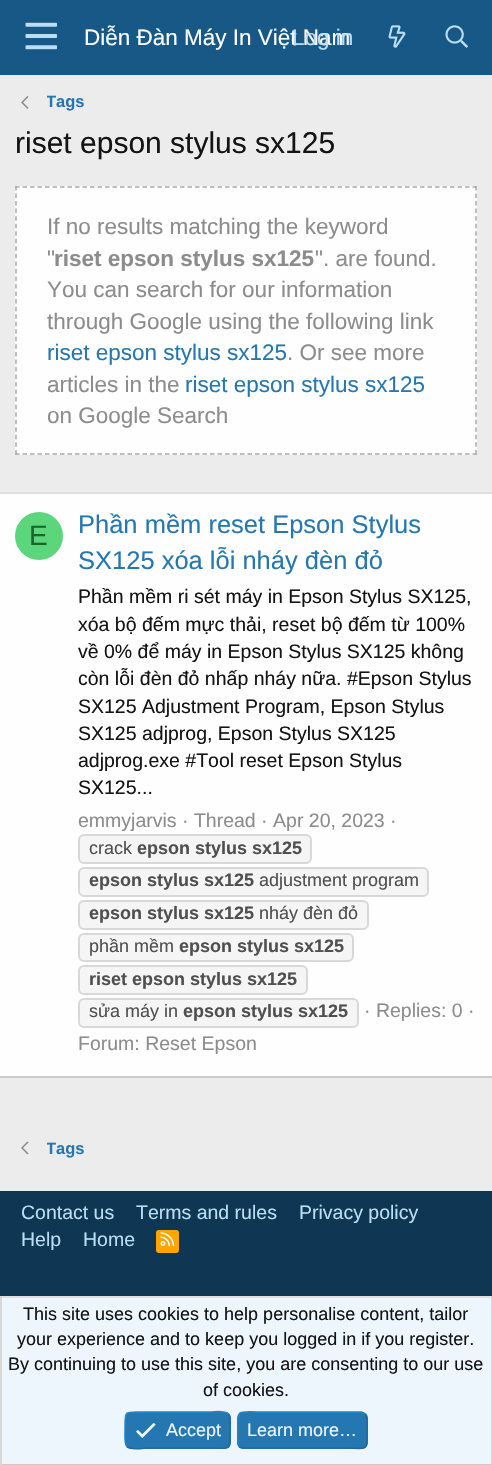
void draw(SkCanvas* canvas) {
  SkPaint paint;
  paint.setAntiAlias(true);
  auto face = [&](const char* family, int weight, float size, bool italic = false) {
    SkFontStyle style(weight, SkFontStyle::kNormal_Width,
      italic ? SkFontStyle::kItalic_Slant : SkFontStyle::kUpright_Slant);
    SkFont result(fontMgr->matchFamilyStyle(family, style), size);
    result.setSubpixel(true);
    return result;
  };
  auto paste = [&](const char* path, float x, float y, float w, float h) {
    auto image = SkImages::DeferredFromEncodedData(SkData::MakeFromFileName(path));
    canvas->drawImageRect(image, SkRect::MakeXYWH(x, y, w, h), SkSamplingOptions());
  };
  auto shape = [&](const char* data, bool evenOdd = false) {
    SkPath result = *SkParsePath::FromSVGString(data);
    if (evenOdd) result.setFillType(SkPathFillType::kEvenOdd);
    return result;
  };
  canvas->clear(0xffececec);
  paint.setColor(0xff185886);
  canvas->drawRect(SkRect::MakeXYWH(0, 0, 492, 75), paint);
  paste("img/1.png", 25, 22, 32, 28);
  paste("img/2.png", 388, 25, 18, 23);
  paste("img/3.png", 445, 25, 23, 23);
  paste("img/4.png", 21, 96, 8, 13);
  paint.setColor(0xfffefefe);
  canvas->drawRect(SkRect::MakeXYWH(15, 186, 462, 269), paint);
  paint.setStroke(true);
  paint.setStrokeWidth(1.5f);
  paint.setColor(0xffaaaaaa);
  paint.setPathEffect(SkDashPathEffect::Make({{4.5f, 3}}, 0));
  canvas->drawPath(shape("M15 187H477"), paint);
  paint.setPathEffect(nullptr);
  paint.setPathEffect(SkDashPathEffect::Make({{4.5f, 3.04f}}, 0));
  canvas->drawPath(shape("M476 186V454.5"), paint);
  paint.setPathEffect(nullptr);
  paint.setPathEffect(SkDashPathEffect::Make({{4.5f, 3}}, 0));
  canvas->drawPath(shape("M15 454H477"), paint);
  paint.setPathEffect(nullptr);
  paint.setPathEffect(SkDashPathEffect::Make({{4.5f, 3.04f}}, 0));
  canvas->drawPath(shape("M16 186V454.5"), paint);
  paint.setPathEffect(nullptr);
  paint.setStroke(false);
  {
    const struct { float x, y, w, h; SkColor color; } items[] = {
      {0, 494, 492, 582, 0xfffefefe},
      {0, 492, 492, 2, 0xffdfdfdf},
      {0, 1076, 492, 2, 0xffcbcbcb},
    };
    for (auto [x, y, w, h, color] : items) {
      paint.setColor(color);
      canvas->drawRect(SkRect::MakeXYWH(x, y, w, h), paint);
    }
  }
  paint.setColor(0xff5cd67a);
  canvas->drawCircle(39, 536, 24, paint);
  paint.setColor(0xfff5f5f5);
  canvas->drawRoundRect(SkRect::MakeXYWH(79, 835, 232, 28), 5, 5, paint);
  paint.setStroke(true);
  paint.setStrokeWidth(2);
  paint.setColor(0xffd8d8d8);
  canvas->drawRoundRect(SkRect::MakeXYWH(79, 835, 232, 28), 5, 5, paint);
  paint.setStroke(false);
  paint.setColor(0xfff5f5f5);
  canvas->drawRoundRect(SkRect::MakeXYWH(79, 868, 349, 28), 5, 5, paint);
  paint.setStroke(true);
  paint.setColor(0xffd8d8d8);
  canvas->drawRoundRect(SkRect::MakeXYWH(79, 868, 349, 28), 5, 5, paint);
  paint.setStroke(false);
  paint.setColor(0xfff5f5f5);
  canvas->drawRoundRect(SkRect::MakeXYWH(79, 901, 289, 28), 5, 5, paint);
  paint.setStroke(true);
  paint.setColor(0xffd8d8d8);
  canvas->drawRoundRect(SkRect::MakeXYWH(79, 901, 289, 28), 5, 5, paint);
  paint.setStroke(false);
  paint.setColor(0xfff5f5f5);
  canvas->drawRoundRect(SkRect::MakeXYWH(79, 934, 274, 27), 5, 5, paint);
  paint.setStroke(true);
  paint.setColor(0xffd8d8d8);
  canvas->drawRoundRect(SkRect::MakeXYWH(79, 934, 274, 27), 5, 5, paint);
  paint.setStroke(false);
  paint.setColor(0xfff5f5f5);
  canvas->drawRoundRect(SkRect::MakeXYWH(79, 966, 228, 28), 5, 5, paint);
  paint.setStroke(true);
  paint.setColor(0xffd8d8d8);
  canvas->drawRoundRect(SkRect::MakeXYWH(79, 966, 228, 28), 5, 5, paint);
  paint.setStroke(false);
  paint.setColor(0xfff5f5f5);
  canvas->drawRoundRect(SkRect::MakeXYWH(79, 999, 279, 28), 5, 5, paint);
  paint.setStroke(true);
  paint.setColor(0xffd8d8d8);
  canvas->drawRoundRect(SkRect::MakeXYWH(79, 999, 279, 28), 5, 5, paint);
  paste("img/5.png", 21, 1141, 8, 14);
  paint.setStroke(false);
  paint.setColor(0xff0f3652);
  canvas->drawRect(SkRect::MakeXYWH(0, 1191, 492, 105), paint);
  paint.setColor(0xffffa500);
  canvas->drawRoundRect(SkRect::MakeXYWH(156, 1230, 23, 23), 3, 3, paint);
  paste("img/6.png", 160, 1232, 15, 14);
  {
    const struct { float x, y, w, h; SkColor color; } items[] = {
      {2, 1298, 489, 166, 0xffedf6fd},
      {0, 1296, 492, 2, 0xffdfdfdf},
      {491, 1296, 1, 169, 0xffd8d8d8},
      {0, 1464, 492, 1, 0xffcbcbcb},
      {0, 1296, 2, 169, 0xffd8d8d8},
    };
    for (auto [x, y, w, h, color] : items) {
      paint.setColor(color);
      canvas->drawRect(SkRect::MakeXYWH(x, y, w, h), paint);
    }
  }
  paint.setColor(0xff2577b1);
  canvas->drawRoundRect(SkRect::MakeXYWH(125, 1412, 106, 37), 6, 6, paint);
  paint.setStroke(true);
  paint.setStrokeWidth(1.5f);
  paint.setColor(0xff21699c);
  canvas->drawPath(shape("M228.5 1414C231.5 1416.5 230 1426.5 230 1430C230 1451.5 232 1448 209 1448H146C144.5 1448 130.5 1450.5 127 1446.5"), paint);
  paint.setColor(0xff2985c6);
  canvas->drawPath(shape("M127 1446.5C124 1444 125 1434 125 1430C125 1409 123.5 1412 146 1412H209C211 1412 225 1410 228.5 1414"), paint);
  paste("img/7.png", 136, 1423, 20, 15);
  paint.setStroke(false);
  paint.setColor(0xff2577b1);
  canvas->drawRoundRect(SkRect::MakeXYWH(237, 1412, 131, 37), 6, 6, paint);
  paint.setStroke(true);
  paint.setColor(0xff21699c);
  canvas->drawPath(shape("M365 1414C368 1416.5 367 1426.5 367 1430C367 1453 368 1448 342 1448H243C241.5 1448 240.5 1447.5 239.5 1446.5"), paint);
  paint.setColor(0xff2985c6);
  canvas->drawPath(shape("M239.5 1446.5C236.5 1444 238 1434 238 1430C238 1407.5 236.5 1412 263 1412H361.5C363 1412.5 364 1413 365 1414"), paint);
  auto f0 = face("Liberation Sans", 400, 22.5f);
  paint.setStroke(false);
  paint.setColor(0xfffefefe);
  canvas->drawString("Diễn Đàn Máy In Việt Nam", 84, 45, f0, paint);
  paint.setColor(0xffbcdef5);
  canvas->drawString("Log in", 292, 45, f0, paint);
  canvas->save();
  canvas->clipRect(SkRect::MakeXYWH(47, 90, 37, 24));
  auto f1 = face("Liberation Sans", 700, 16.5f);
  paint.setColor(0xff2577b1);
  canvas->drawString("Tags", 46, 107, f1, paint);
  canvas->restore();
  auto f2 = face("Liberation Sans", 400, 30);
  paint.setColor(0xff141414);
  canvas->drawString("riset epson stylus sx125", 15, 153, f2, paint);
  paint.setColor(0xff8c8c8c);
  canvas->drawString("If no results matching the keyword", 47, 234, f0, paint);
  canvas->drawString("\"", 47, 266, f0, paint);
  auto f3 = face("Liberation Sans", 700, 22.5f);
  canvas->drawString("riset epson stylus sx125", 54, 266, f3, paint);
  {
    const struct { const char* s; float x, y; } items[] = {
      {"\". are found.", 315, 266},
      {"You can search for our information", 47, 297},
      {"through Google using the following link", 47, 329},
    };
    for (auto [s, x, y] : items) {
      canvas->drawString(s, x, y, f0, paint);
    }
  }
  paint.setColor(0xff2577b1);
  canvas->drawString("riset epson stylus sx125", 47, 360, f0, paint);
  paint.setColor(0xff8c8c8c);
  canvas->drawString(". Or see more", 287, 360, f0, paint);
  canvas->drawString("articles in the", 47, 392, f0, paint);
  paint.setColor(0xff2577b1);
  canvas->drawString("riset epson stylus sx125", 185, 392, f0, paint);
  paint.setColor(0xff8c8c8c);
  canvas->drawString("on Google Search", 47, 423, f0, paint);
  auto f4 = face("Liberation Sans", 400, 28);
  paint.setColor(0xff1a662d);
  canvas->drawString("E", 29, 545, f4, paint);
  auto f5 = face("Liberation Sans", 400, 25.5f);
  paint.setColor(0xff2577b1);
  canvas->drawString("Phần mềm reset Epson Stylus", 78, 533, f5, paint);
  canvas->drawString("SX125 xóa lỗi nháy đèn đỏ", 78, 569, f5, paint);
  auto f6 = face("Liberation Sans", 400, 19.5f);
  paint.setColor(0xff141414);
  {
    const struct { const char* s; float x, y; } items[] = {
      {"Phần mềm ri sét máy in Epson Stylus SX125,", 78, 603},
      {"xóa bộ đếm mực thải, reset bộ đếm từ 100%", 78, 631},
      {"về 0% để máy in Epson Stylus SX125 không", 78, 658},
      {"còn lỗi đèn đỏ nhấp nháy nữa. #Epson Stylus", 78, 685},
      {"SX125 Adjustment Program, Epson Stylus", 78, 713},
      {"SX125 adjprog, Epson Stylus SX125", 78, 740},
      {"adjprog.exe #Tool reset Epson Stylus", 78, 767},
      {"SX125...", 78, 794},
    };
    for (auto [s, x, y] : items) {
      canvas->drawString(s, x, y, f6, paint);
    }
  }
  paint.setColor(0xff8c8c8c);
  canvas->drawString("emmyjarvis · Thread · Apr 20, 2023 ·", 78, 827, f6, paint);
  auto f7 = face("Liberation Sans", 400, 18);
  paint.setColor(0xff505050);
  canvas->drawString("crack", 89, 854, f7, paint);
  auto f8 = face("Liberation Sans", 700, 18);
  canvas->drawString("epson stylus sx125", 137, 854, f8, paint);
  canvas->drawString("epson stylus sx125", 89, 886, f8, paint);
  canvas->drawString("adjustment program", 259, 886, f7, paint);
  canvas->drawString("epson stylus sx125", 89, 919, f8, paint);
  canvas->drawString("nháy đèn đỏ", 259, 919, f7, paint);
  canvas->drawString("phần mềm", 89, 952, f7, paint);
  canvas->drawString("epson stylus sx125", 179, 952, f8, paint);
  canvas->drawString("riset epson stylus sx125", 89, 985, f8, paint);
  canvas->drawString("sửa máy in", 89, 1017, f7, paint);
  canvas->drawString("epson stylus sx125", 183, 1017, f8, paint);
  paint.setColor(0xff8c8c8c);
  canvas->drawString("· Replies: 0 ·", 364, 1017, f6, paint);
  canvas->drawString("Forum: Reset Epson", 78, 1050, f6, paint);
  canvas->save();
  canvas->clipRect(SkRect::MakeXYWH(47, 1136, 37, 25));
  paint.setColor(0xff2577b1);
  canvas->drawString("Tags", 46, 1154, f1, paint);
  canvas->restore();
  paint.setColor(0xffbcdef5);
  {
    const struct { const char* s; float x, y; } items[] = {
      {"Contact us", 21, 1219},
      {"Terms and rules", 136, 1219},
      {"Privacy policy", 299, 1219},
      {"Help", 21, 1246},
      {"Home", 83, 1246},
    };
    for (auto [s, x, y] : items) {
      canvas->drawString(s, x, y, f6, paint);
    }
  }
  paint.setColor(0xff141414);
  {
    const struct { const char* s; float x, y; } items[] = {
      {"This site uses cookies to help personalise content, tailor", 23, 1320},
      {"your experience and to keep you logged in if you register.", 17, 1345},
      {"By continuing to use this site, you are consenting to our use", 8, 1370},
      {"of cookies.", 203, 1396},
    };
    for (auto [s, x, y] : items) {
      canvas->drawString(s, x, y, f7, paint);
    }
  }
  paint.setColor(0xffedf6fd);
  canvas->drawString("Accept", 166, 1436, f7, paint);
  canvas->drawString("Learn more…", 247, 1436, f7, paint);
}
